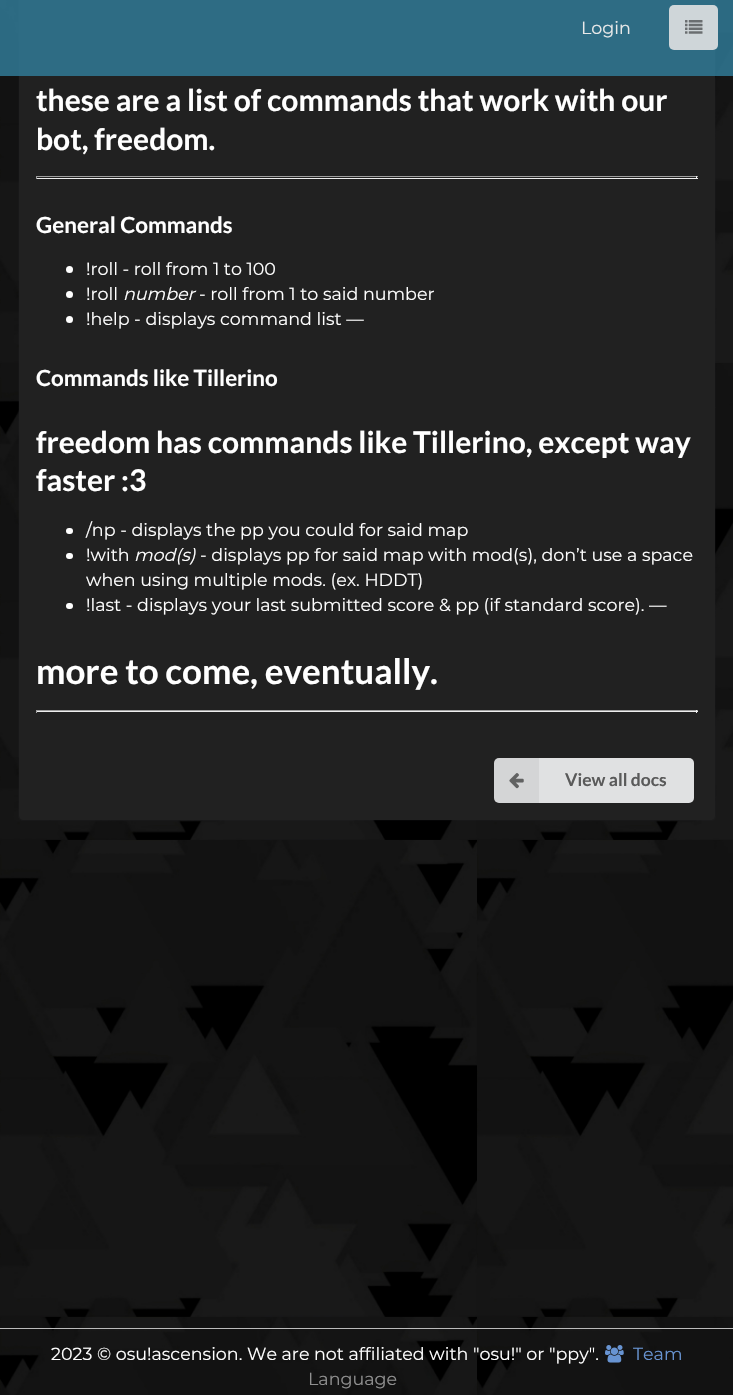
void draw(SkCanvas* canvas) {
  SkPaint paint;
  paint.setAntiAlias(true);
  auto face = [&](const char* family, int weight, float size, bool italic = false) {
    SkFontStyle style(weight, SkFontStyle::kNormal_Width,
      italic ? SkFontStyle::kItalic_Slant : SkFontStyle::kUpright_Slant);
    SkFont result(fontMgr->matchFamilyStyle(family, style), size);
    result.setSubpixel(true);
    return result;
  };
  auto paste = [&](const char* path, float x, float y, float w, float h) {
    auto image = SkImages::DeferredFromEncodedData(SkData::MakeFromFileName(path));
    canvas->drawImageRect(image, SkRect::MakeXYWH(x, y, w, h), SkSamplingOptions());
  };
  auto shape = [&](const char* data, bool evenOdd = false) {
    SkPath result = *SkParsePath::FromSVGString(data);
    if (evenOdd) result.setFillType(SkPathFillType::kEvenOdd);
    return result;
  };
  canvas->clear(0xffffffff);
  paste("img/1.png", 0, 0, 733, 1395);
  paint.setStroke(true);
  paint.setStrokeWidth(1);
  paint.setColor(0x26222426);
  canvas->drawRoundRect(SkRect::MakeXYWH(18.5f, -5.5f, 697, 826), 4.5f, 4.5f, paint);
  paint.setStroke(false);
  paint.setColor(0xff212121);
  canvas->drawRect(SkRect::MakeXYWH(19, 0, 696, 739), paint);
  paint.setColor(0xe62f738e);
  canvas->drawRect(SkRect::MakeXYWH(0, 0, 733, 76), paint);
  paint.setColor(0xe6e0e1e2);
  canvas->drawRoundRect(SkRect::MakeXYWH(669, 5, 49, 45), 5, 5, paint);
  paste("img/2.png", 685, 20, 18, 14);
  {
    const struct { float x, y, w, h; SkColor color; } items[] = {
      {36, 176, 662, 1, 0xff9f9f9f},
      {696, 176, 1, 3, 0xffeeeeee},
      {36, 178, 662, 1, 0xffeeeeee},
      {36, 176, 1, 3, 0xff9f9f9f},
    };
    for (auto [x, y, w, h, color] : items) {
      paint.setColor(color);
      canvas->drawRect(SkRect::MakeXYWH(x, y, w, h), paint);
    }
  }
  paint.setColor(0xffffffff);
  canvas->drawCircle(69.5f, 269.5f, 3.5f, paint);
  canvas->drawCircle(69.5f, 294.5f, 3.5f, paint);
  canvas->drawCircle(69.5f, 319.5f, 3.5f, paint);
  canvas->drawRoundRect(SkRect::MakeXYWH(66, 528, 7, 6), 3, 3, paint);
  canvas->drawRoundRect(SkRect::MakeXYWH(66, 553, 7, 6), 3, 3, paint);
  canvas->drawRoundRect(SkRect::MakeXYWH(66, 603, 7, 6), 3, 3, paint);
  {
    const struct { float x, y, w, h; SkColor color; } items[] = {
      {36, 710, 662, 1, 0xff9f9f9f},
      {696, 710, 1, 3, 0xffeeeeee},
      {36, 711, 662, 1, 0xffeeeeee},
      {36, 710, 1, 3, 0xff9f9f9f},
    };
    for (auto [x, y, w, h, color] : items) {
      paint.setColor(color);
      canvas->drawRect(SkRect::MakeXYWH(x, y, w, h), paint);
    }
  }
  paint.setColor(0xff212121);
  canvas->drawPath(shape("M19 739H715V815C715 818 713 820 710 820H24C21 820 19 818 19 815Z"), paint);
  paint.setColor(0xffe0e1e2);
  canvas->drawRoundRect(SkRect::MakeXYWH(494, 758, 200, 45), 5, 5, paint);
  paint.setColor(0x0d000000);
  canvas->drawRect(SkRect::MakeXYWH(494, 758, 45, 45), paint);
  paste("img/3.png", 509, 773, 15, 16);
  paint.setColor(0xffbbbbbb);
  canvas->drawRect(SkRect::MakeXYWH(0, 1328, 733, 1), paint);
  paste("img/4.png", 605, 1345, 19, 18);
  auto f0 = face("Montserrat", 100, 17.5f);
  paint.setColor(0xffe9e9e9);
  canvas->drawString("Login", 581, 34, f0, paint);
  auto f1 = face("Lato", 700, 30);
  paint.setColor(0xffffffff);
  canvas->drawString("these are a list of commands that work with our", 36, 111, f1, paint);
  canvas->drawString("bot, freedom.", 36, 150, f1, paint);
  auto f2 = face("Lato", 700, 22.4f);
  canvas->drawString("General Commands", 36, 233, f2, paint);
  canvas->drawString("!roll - roll from 1 to 100", 86, 275, f0, paint);
  canvas->drawString("!roll", 86, 300, f0, paint);
  auto f3 = face("Montserrat", 100, 17.5f, true);
  canvas->drawString("number", 123, 300, f3, paint);
  canvas->drawString("- roll from 1 to said number", 199, 300, f0, paint);
  canvas->drawString("!help - displays command list —", 86, 325, f0, paint);
  canvas->drawString("Commands like Tillerino", 36, 386, f2, paint);
  canvas->drawString("freedom has commands like Tillerino, except way", 36, 453, f1, paint);
  canvas->drawString("faster :3", 36, 491, f1, paint);
  canvas->drawString("/np - displays the pp you could for said map", 86, 536, f0, paint);
  canvas->drawString("!with", 86, 561, f0, paint);
  canvas->drawString("mod(s)", 134, 561, f3, paint);
  {
    const struct { const char* s; float x, y; } items[] = {
      {"- displays pp for said map with mod(s), don’t use a space", 200, 561},
      {"when using multiple mods. (ex. HDDT)", 86, 586},
      {"!last - displays your last submitted score & pp (if standard score). —", 86, 611},
    };
    for (auto [s, x, y] : items) {
      canvas->drawString(s, x, y, f0, paint);
    }
  }
  auto f4 = face("Lato", 700, 35);
  canvas->drawString("more to come, eventually.", 36, 684, f4, paint);
  auto f5 = face("Lato", 700, 17.5f);
  paint.setColor(0xff5a5a5a);
  canvas->drawString("View all docs", 565, 786, f5, paint);
  paint.setColor(0xffffffff);
  canvas->drawString("2023 © osu!ascension. We are not affiliated with \"osu!\" or \"ppy\".", 51, 1360, f0, paint);
  paint.setColor(0xff6894d2);
  canvas->drawString("Team", 633, 1360, f0, paint);
  paint.setColor(0xff909090);
  canvas->drawString("Language", 308, 1385, f0, paint);
}
